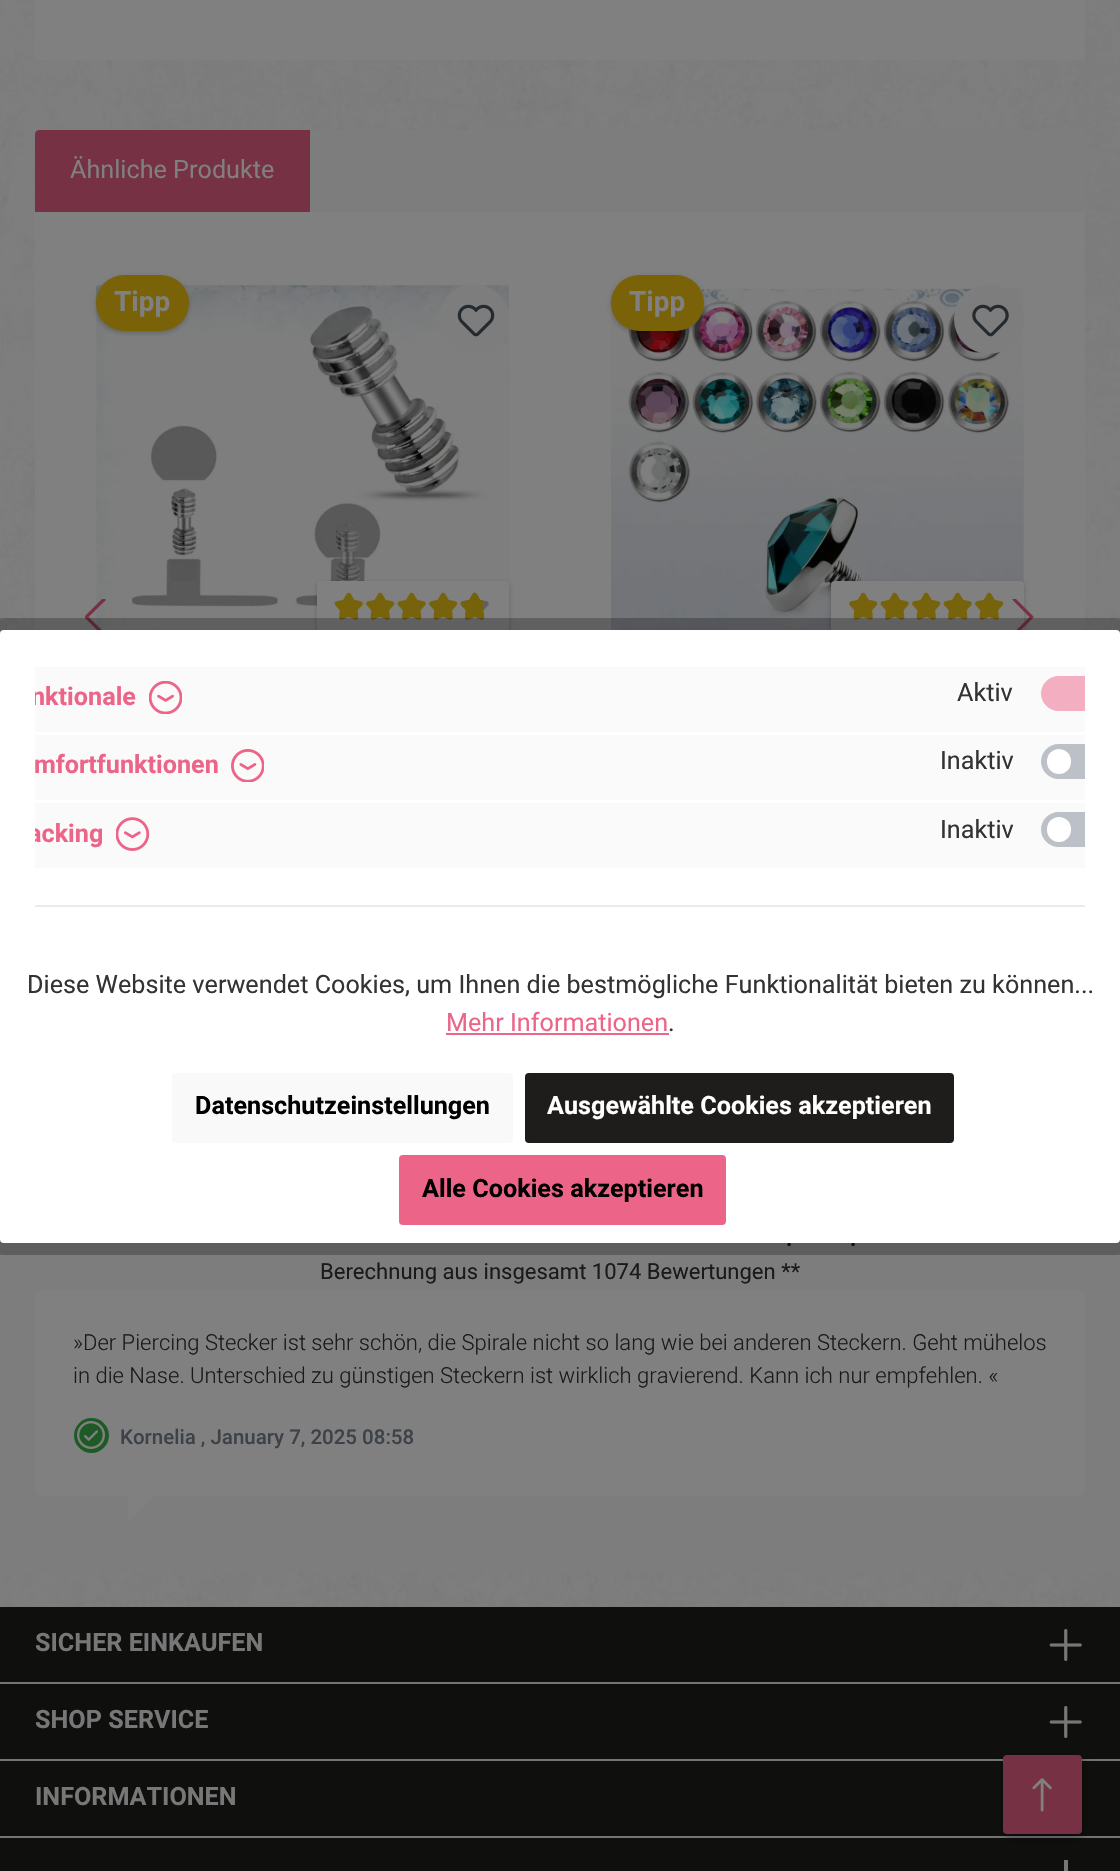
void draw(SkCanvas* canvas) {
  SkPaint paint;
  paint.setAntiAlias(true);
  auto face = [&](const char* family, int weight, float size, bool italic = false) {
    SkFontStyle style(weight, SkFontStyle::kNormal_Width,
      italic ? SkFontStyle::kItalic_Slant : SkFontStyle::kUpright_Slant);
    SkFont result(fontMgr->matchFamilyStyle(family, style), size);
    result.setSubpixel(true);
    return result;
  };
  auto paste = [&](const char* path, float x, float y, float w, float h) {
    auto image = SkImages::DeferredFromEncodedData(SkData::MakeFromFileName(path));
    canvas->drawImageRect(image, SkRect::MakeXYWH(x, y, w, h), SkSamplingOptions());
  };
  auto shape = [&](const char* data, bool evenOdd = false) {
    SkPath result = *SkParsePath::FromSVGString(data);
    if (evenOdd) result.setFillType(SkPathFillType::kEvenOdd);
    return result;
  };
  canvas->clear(0xffffffff);
  paste("img/1.png", 0, 0, 1120, 1607);
  paint.setColor(0xff808080);
  canvas->drawRect(SkRect::MakeXYWH(35, 0, 1050, 60), paint);
  canvas->save();
  canvas->clipPath(shape("M39 130H1081C1083 130 1085 132 1085 134V1016C1085 1018 1083 1020 1081 1020H39C37 1020 35 1018 35 1016V134C35 132 37 130 39 130Z"), true);
  paint.setColor(0xff7d7d7d);
  canvas->drawPath(shape("M42 130H1081C1083 130 1085 132 1085 134V212H35V137C35 133 38 130 42 130Z"), paint);
  canvas->restore();
  paint.setColor(0xff763244);
  canvas->drawPath(shape("M39 130H310V208H35V134C35 132 37 130 39 130Z"), paint);
  canvas->drawRect(SkRect::MakeXYWH(35, 208, 275, 4), paint);
  paint.setColor(0xff808080);
  canvas->drawRect(SkRect::MakeXYWH(35, 212, 1050, 418), paint);
  paste("img/3.png", 96, 285, 413, 345);
  paint.setColor(0xff7d7d7d);
  canvas->drawCircle(474, 319, 35, paint);
  paste("img/2.png", 457, 304, 38, 33);
  paint.setColor(0x1a000000);
  paint.setMaskFilter(SkMaskFilter::MakeBlur(kNormal_SkBlurStyle, 2));
  canvas->drawRoundRect(SkRect::MakeXYWH(96, 277, 93, 56), 28, 28, paint);
  paint.setMaskFilter(nullptr);
  paint.setMaskFilter(SkMaskFilter::MakeBlur(kNormal_SkBlurStyle, 2.5f));
  canvas->drawRoundRect(SkRect::MakeXYWH(96, 277, 93, 56), 28, 28, paint);
  paint.setMaskFilter(nullptr);
  paint.setColor(0xff796208);
  canvas->drawRoundRect(SkRect::MakeXYWH(96, 275, 93, 56), 28, 28, paint);
  paint.setColor(0x1a000000);
  paint.setMaskFilter(SkMaskFilter::MakeBlur(kNormal_SkBlurStyle, 2));
  canvas->drawRoundRect(SkRect::MakeXYWH(317, 583, 192, 52), 4, 4, paint);
  paint.setMaskFilter(nullptr);
  paint.setMaskFilter(SkMaskFilter::MakeBlur(kNormal_SkBlurStyle, 2.5f));
  canvas->drawRoundRect(SkRect::MakeXYWH(317, 583, 192, 52), 4, 4, paint);
  paint.setMaskFilter(nullptr);
  paint.setColor(0xff808080);
  canvas->drawRoundRect(SkRect::MakeXYWH(317, 581, 192, 53), 4, 4, paint);
  paste("img/4.png", 334, 592, 29, 28);
  paste("img/5.png", 366, 592, 29, 28);
  paste("img/4.png", 397, 592, 29, 28);
  paste("img/5.png", 429, 592, 29, 28);
  paste("img/6.png", 460, 592, 29, 28);
  paste("img/7.png", 460, 592, 23, 28);
  paste("img/9.png", 611, 288, 413, 342);
  paint.setColor(0xff7d7d7d);
  canvas->drawCircle(989, 319, 35, paint);
  paste("img/8.png", 972, 304, 37, 33);
  paint.setColor(0x1a000000);
  paint.setMaskFilter(SkMaskFilter::MakeBlur(kNormal_SkBlurStyle, 2));
  canvas->drawRoundRect(SkRect::MakeXYWH(611, 277, 93, 56), 28, 28, paint);
  paint.setMaskFilter(nullptr);
  paint.setMaskFilter(SkMaskFilter::MakeBlur(kNormal_SkBlurStyle, 2.5f));
  canvas->drawRoundRect(SkRect::MakeXYWH(611, 277, 93, 56), 28, 28, paint);
  paint.setMaskFilter(nullptr);
  paint.setColor(0xff796208);
  canvas->drawRoundRect(SkRect::MakeXYWH(611, 275, 93, 56), 28, 28, paint);
  paint.setColor(0x1a000000);
  paint.setMaskFilter(SkMaskFilter::MakeBlur(kNormal_SkBlurStyle, 2));
  canvas->drawRoundRect(SkRect::MakeXYWH(831, 583, 193, 52), 4, 4, paint);
  paint.setMaskFilter(nullptr);
  paint.setMaskFilter(SkMaskFilter::MakeBlur(kNormal_SkBlurStyle, 2.5f));
  canvas->drawRoundRect(SkRect::MakeXYWH(831, 583, 193, 52), 4, 4, paint);
  paint.setMaskFilter(nullptr);
  paint.setColor(0xff808080);
  canvas->drawRoundRect(SkRect::MakeXYWH(831, 581, 193, 53), 4, 4, paint);
  paste("img/5.png", 849, 592, 29, 28);
  paste("img/4.png", 880, 592, 29, 28);
  paste("img/5.png", 912, 592, 29, 28);
  paste("img/4.png", 943, 592, 29, 28);
  paste("img/5.png", 975, 592, 29, 28);
  canvas->save();
  canvas->clipRect(SkRect::MakeXYWH(75, 599, 39, 38));
  paint.setColor(0xff763244);
  canvas->drawPath(shape("M88.5 617L105.5 633.5C106 634.5 105.5 636 104.5 636H103L85 618V617V616L103 598L104.5 597.5C105.5 598 106 599.5 105.5 600.5Z", true), paint);
  canvas->restore();
  canvas->save();
  canvas->clipRect(SkRect::MakeXYWH(1005, 599, 38, 38));
  canvas->drawPath(shape("M1029.5 617L1013 633.5C1012 634.5 1012.5 636 1014 636H1015L1033 618L1033.5 617L1033 616L1015 598L1014 597.5C1012.5 598 1012 599.5 1013 600.5Z", true), paint);
  canvas->restore();
  paint.setColor(0xff7d7d7d);
  canvas->drawRect(SkRect::MakeXYWH(0, 1239, 1120, 333), paint);
  paint.setColor(0xff808080);
  canvas->drawRoundRect(SkRect::MakeXYWH(35, 1290, 1050, 206), 7, 7, paint);
  paint.setColor(0xff1e5a26);
  canvas->drawCircle(91.5f, 1435.5f, 17.5f, paint);
  paste("img/13.png", 77, 1421, 28, 28);
  paint.setColor(0xff808080);
  canvas->drawPath(shape("M128 1496H154L128 1522.5Z"), paint);
  paint.setColor(0xff0f0f0e);
  canvas->drawRect(SkRect::MakeXYWH(0, 1607, 1120, 264), paint);
  paint.setColor(0xff757578);
  canvas->drawRect(SkRect::MakeXYWH(0, 1682, 1120, 2), paint);
  paste("img/14.png", 1049, 1629, 33, 32);
  canvas->drawRect(SkRect::MakeXYWH(0, 1759, 1120, 2), paint);
  paste("img/14.png", 1049, 1706, 33, 32);
  canvas->drawRect(SkRect::MakeXYWH(0, 1836, 1120, 2), paint);
  paint.setColor(0xff777777);
  canvas->drawRect(SkRect::MakeXYWH(1064, 1860, 4, 11), paint);
  paint.setColor(0x4d000000);
  paint.setMaskFilter(SkMaskFilter::MakeBlur(kNormal_SkBlurStyle, 5));
  canvas->drawRoundRect(SkRect::MakeXYWH(1005, 1759, 78, 79), 4, 4, paint);
  paint.setMaskFilter(nullptr);
  paint.setColor(0xff763244);
  canvas->drawRoundRect(SkRect::MakeXYWH(1004, 1756, 77, 77), 3, 3, paint);
  paint.setStroke(true);
  paint.setStrokeWidth(2);
  canvas->drawRoundRect(SkRect::MakeXYWH(1004, 1756, 77, 77), 3, 3, paint);
  paste("img/15.png", 1032, 1778, 20, 34);
  auto f0 = face("Roboto", 400, 25.2f);
  paint.setStroke(false);
  paint.setColor(0xff808080);
  canvas->drawString("Ähnliche Produkte", 70, 178, f0, paint);
  auto f1 = face("Roboto", 700, 28);
  canvas->drawString("Tipp", 114, 311, f1, paint);
  canvas->drawString("Tipp", 629, 311, f1, paint);
  auto f2 = face("Roboto", 700, 22.05f);
  paint.setColor(0xff1a1a1a);
  canvas->drawString(".", 786, 1246, f2, paint);
  canvas->drawString(".", 850, 1246, f2, paint);
  paint.setStroke(true);
  paint.setStrokeWidth(12);
  paint.setColor(0x40000000);
  canvas->drawRoundRect(SkRect::MakeXYWH(-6, 624, 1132, 625), 10, 10, paint);
  paint.setStroke(false);
  paint.setColor(0xffffffff);
  canvas->drawRoundRect(SkRect::MakeXYWH(0, 630, 1120, 613), 4, 4, paint);
  paint.setColor(0xfffafafa);
  canvas->drawRect(SkRect::MakeXYWH(35, 803, 1050, 65), paint);
  paste("img/12.png", 116, 817, 34, 34);
  canvas->save();
  canvas->clipRect(SkRect::MakeXYWH(35, 665, 1050, 240));
  auto f3 = face("Roboto", 700, 25.2f);
  paint.setColor(0xffec6488);
  canvas->drawString("acking", 28, 842, f3, paint);
  canvas->restore();
  paint.setColor(0xfffafafa);
  canvas->drawRect(SkRect::MakeXYWH(35, 735, 1050, 65), paint);
  paste("img/11.png", 231, 749, 33, 33);
  paint.setColor(0xffec6488);
  canvas->drawString("mfortfunktionen", 34, 773, f3, paint);
  paint.setColor(0xfffafafa);
  canvas->drawRect(SkRect::MakeXYWH(35, 667, 1050, 65), paint);
  paste("img/10.png", 149, 681, 33, 33);
  canvas->save();
  canvas->clipRect(SkRect::MakeXYWH(35, 665, 1050, 240));
  paint.setColor(0xffec6488);
  canvas->drawString("nktionale", 31, 705, f3, paint);
  canvas->restore();
  paint.setColor(0xff333333);
  canvas->drawString("Inaktiv", 940, 838, f0, paint);
  paint.setColor(0xffbcc1c7);
  canvas->drawPath(shape("M1058.5 812H1085V847H1058.5C1049 847 1041 839 1041 829.5C1041 820 1049 812 1058.5 812Z"), paint);
  paint.setColor(0xffffffff);
  canvas->drawRoundRect(SkRect::MakeXYWH(1047, 817, 24, 25), 12, 12, paint);
  paint.setColor(0xff333333);
  canvas->drawString("Inaktiv", 940, 769, f0, paint);
  paint.setColor(0xffbcc1c7);
  canvas->drawPath(shape("M1058.5 744H1085V779H1058.5C1049 779 1041 771 1041 761.5C1041 752 1049 744 1058.5 744Z"), paint);
  paint.setColor(0xffffffff);
  canvas->drawRoundRect(SkRect::MakeXYWH(1047, 749, 24, 25), 12, 12, paint);
  paint.setColor(0xff333333);
  canvas->drawString("Aktiv", 957, 701, f0, paint);
  paint.setColor(0xfff3afc1);
  canvas->drawPath(shape("M1058.5 676H1085V711H1058.5C1049 711 1041 703 1041 693.5C1041 684 1049 676 1058.5 676Z"), paint);
  paint.setColor(0xffeaeaf0);
  canvas->drawRect(SkRect::MakeXYWH(35, 905, 1050, 2), paint);
  paint.setColor(0xffec6488);
  canvas->drawRoundRect(SkRect::MakeXYWH(400, 1156, 325, 68), 3, 3, paint);
  paint.setStroke(true);
  paint.setStrokeWidth(2);
  canvas->drawRoundRect(SkRect::MakeXYWH(400, 1156, 325, 68), 3, 3, paint);
  paint.setStroke(false);
  paint.setColor(0xff000000);
  canvas->drawString("Alle Cookies akzeptieren", 422, 1197, f3, paint);
  paint.setColor(0xff1e1d1c);
  canvas->drawRoundRect(SkRect::MakeXYWH(526, 1074, 427, 68), 3, 3, paint);
  paint.setStroke(true);
  canvas->drawRoundRect(SkRect::MakeXYWH(526, 1074, 427, 68), 3, 3, paint);
  paint.setStroke(false);
  paint.setColor(0xffffffff);
  canvas->drawString("Ausgewählte Cookies akzeptieren", 547, 1114, f3, paint);
  paint.setColor(0xfff9f9f9);
  canvas->drawRoundRect(SkRect::MakeXYWH(172, 1073, 341, 70), 4, 4, paint);
  paint.setColor(0xff000000);
  canvas->drawString("Datenschutzeinstellungen", 195, 1114, f3, paint);
  paint.setColor(0xff333333);
  canvas->drawString(".", 668, 1031, f0, paint);
  paint.setColor(0xffec6488);
  canvas->drawString("Mehr Informationen", 446, 1031, f0, paint);
  canvas->drawRect(SkRect::MakeXYWH(446, 1033, 223, 2), paint);
  paint.setColor(0xff333333);
  canvas->drawString("Diese Website verwendet Cookies, um Ihnen die bestmögliche Funktionalität bieten zu können...", 27, 993, f0, paint);
  auto f4 = face("Roboto", 400, 22.05f);
  paint.setColor(0xff1a1a1a);
  canvas->drawString("Berechnung aus insgesamt 1074 Bewertungen **", 320, 1279, f4, paint);
  auto f5 = face("Roboto", 300, 22.05f);
  canvas->drawString("»Der Piercing Stecker ist sehr schön, die Spirale nicht so lang wie bei anderen Steckern. Geht mühelos", 73, 1350, f5, paint);
  canvas->drawString("in die Nase. Unterschied zu günstigen Steckern ist wirklich gravierend. Kann ich nur empfehlen. «", 73, 1383, f5, paint);
  auto f6 = face("Roboto", 500, 20.5f);
  paint.setColor(0xff3d4248);
  canvas->drawString("Kornelia , January 7, 2025 08:58", 120, 1444, f6, paint);
  paint.setColor(0xff777777);
  {
    const struct { const char* s; float x, y; } items[] = {
      {"SICHER EINKAUFEN", 35, 1651},
      {"SHOP SERVICE", 35, 1728},
      {"INFORMATIONEN", 35, 1805},
    };
    for (auto [s, x, y] : items) {
      canvas->drawString(s, x, y, f3, paint);
    }
  }
}
